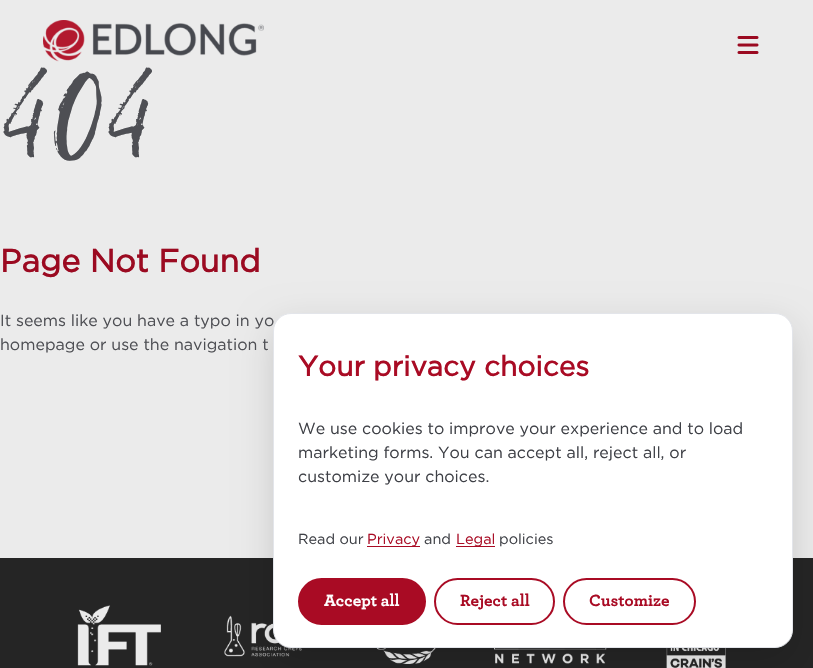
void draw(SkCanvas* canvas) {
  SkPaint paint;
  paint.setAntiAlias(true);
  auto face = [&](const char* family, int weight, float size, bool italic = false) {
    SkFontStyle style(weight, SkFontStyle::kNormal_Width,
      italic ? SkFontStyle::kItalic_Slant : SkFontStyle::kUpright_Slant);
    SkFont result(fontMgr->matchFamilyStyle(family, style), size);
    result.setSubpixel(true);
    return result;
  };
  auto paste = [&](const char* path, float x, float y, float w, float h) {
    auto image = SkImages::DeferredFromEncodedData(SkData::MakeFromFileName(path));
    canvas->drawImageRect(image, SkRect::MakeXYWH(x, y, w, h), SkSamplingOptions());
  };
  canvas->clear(0xffebebeb);
  paste("img/1.png", 43, 20, 221, 42);
  paste("img/2.png", 737, 36, 22, 18);
  paint.setColor(0xff252525);
  canvas->drawRect(SkRect::MakeXYWH(0, 558, 813, 110), paint);
  paste("img/4.png", 224, 615, 78, 42);
  paste("img/5.png", 376, 648, 60, 16);
  paste("img/6.png", 494, 648, 113, 16);
  paste("img/7.png", 666, 648, 60, 20);
  paint.setColor(0x24000000);
  paint.setMaskFilter(SkMaskFilter::MakeBlur(kNormal_SkBlurStyle, 18));
  canvas->drawRoundRect(SkRect::MakeXYWH(273, 325, 520, 335), 18, 18, paint);
  paint.setMaskFilter(nullptr);
  paste("img/3.png", 77, 605, 84, 61);
  auto f0 = face("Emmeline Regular", 400, 163);
  paint.setColor(0xff4e4f54);
  canvas->drawString("404", 0, 171, f0, paint);
  auto f1 = face("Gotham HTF", 700, 32);
  paint.setColor(0xff9b0a21);
  canvas->drawString("Page Not Found", 0, 272, f1, paint);
  auto f2 = face("Gotham HTF", 400, 16);
  paint.setColor(0xff4e4f54);
  canvas->drawString("It seems like you have a typo in yo", 0, 326, f2, paint);
  canvas->drawString("homepage or use the navigation t", 0, 350, f2, paint);
  paint.setColor(0xffffffff);
  canvas->drawRoundRect(SkRect::MakeXYWH(273.5f, 313.5f, 519, 334), 17.5f, 17.5f, paint);
  paint.setStroke(true);
  paint.setStrokeWidth(1);
  paint.setColor(0xffe3e5ea);
  canvas->drawRoundRect(SkRect::MakeXYWH(273.5f, 313.5f, 519, 334), 17.5f, 17.5f, paint);
  auto f3 = face("Gotham HTF", 700, 28);
  paint.setStroke(false);
  paint.setColor(0xffa90b24);
  canvas->drawString("Your privacy choices", 298, 376, f3, paint);
  paint.setColor(0xff3e4046);
  {
    const struct { const char* s; float x, y; } items[] = {
      {"We use cookies to improve your experience and to load", 298, 434},
      {"marketing forms. You can accept all, reject all, or", 298, 458},
      {"customize your choices.", 298, 482},
    };
    for (auto [s, x, y] : items) {
      canvas->drawString(s, x, y, f2, paint);
    }
  }
  auto f4 = face("Gotham HTF", 400, 14.5f);
  canvas->drawString("Read our", 298, 544, f4, paint);
  paint.setColor(0xffa90b24);
  canvas->drawRect(SkRect::MakeXYWH(367, 546, 53, 1), paint);
  canvas->drawString("Privacy", 367, 544, f4, paint);
  paint.setColor(0xff3e4046);
  canvas->drawString("and", 424, 544, f4, paint);
  paint.setColor(0xffa90b24);
  canvas->drawRect(SkRect::MakeXYWH(456, 546, 39, 1), paint);
  canvas->drawString("Legal", 456, 544, f4, paint);
  paint.setColor(0xff3e4046);
  canvas->drawString("policies", 499, 544, f4, paint);
  paint.setColor(0xffa90b24);
  canvas->drawRoundRect(SkRect::MakeXYWH(299, 579, 126, 45), 22.5f, 22.5f, paint);
  paint.setStroke(true);
  paint.setStrokeWidth(2);
  canvas->drawRoundRect(SkRect::MakeXYWH(299, 579, 126, 45), 22.5f, 22.5f, paint);
  auto f5 = face("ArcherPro", 700, 17);
  paint.setStroke(false);
  paint.setColor(0xffffffff);
  canvas->drawString("Accept all", 324, 606, f5, paint);
  paint.setStroke(true);
  paint.setColor(0xffa90b24);
  canvas->drawRoundRect(SkRect::MakeXYWH(435, 579, 119, 45), 22.5f, 22.5f, paint);
  paint.setStroke(false);
  canvas->drawString("Reject all", 460, 606, f5, paint);
  paint.setStroke(true);
  canvas->drawRoundRect(SkRect::MakeXYWH(564, 579, 131, 45), 22.5f, 22.5f, paint);
  paint.setStroke(false);
  canvas->drawString("Customize", 589, 606, f5, paint);
}
